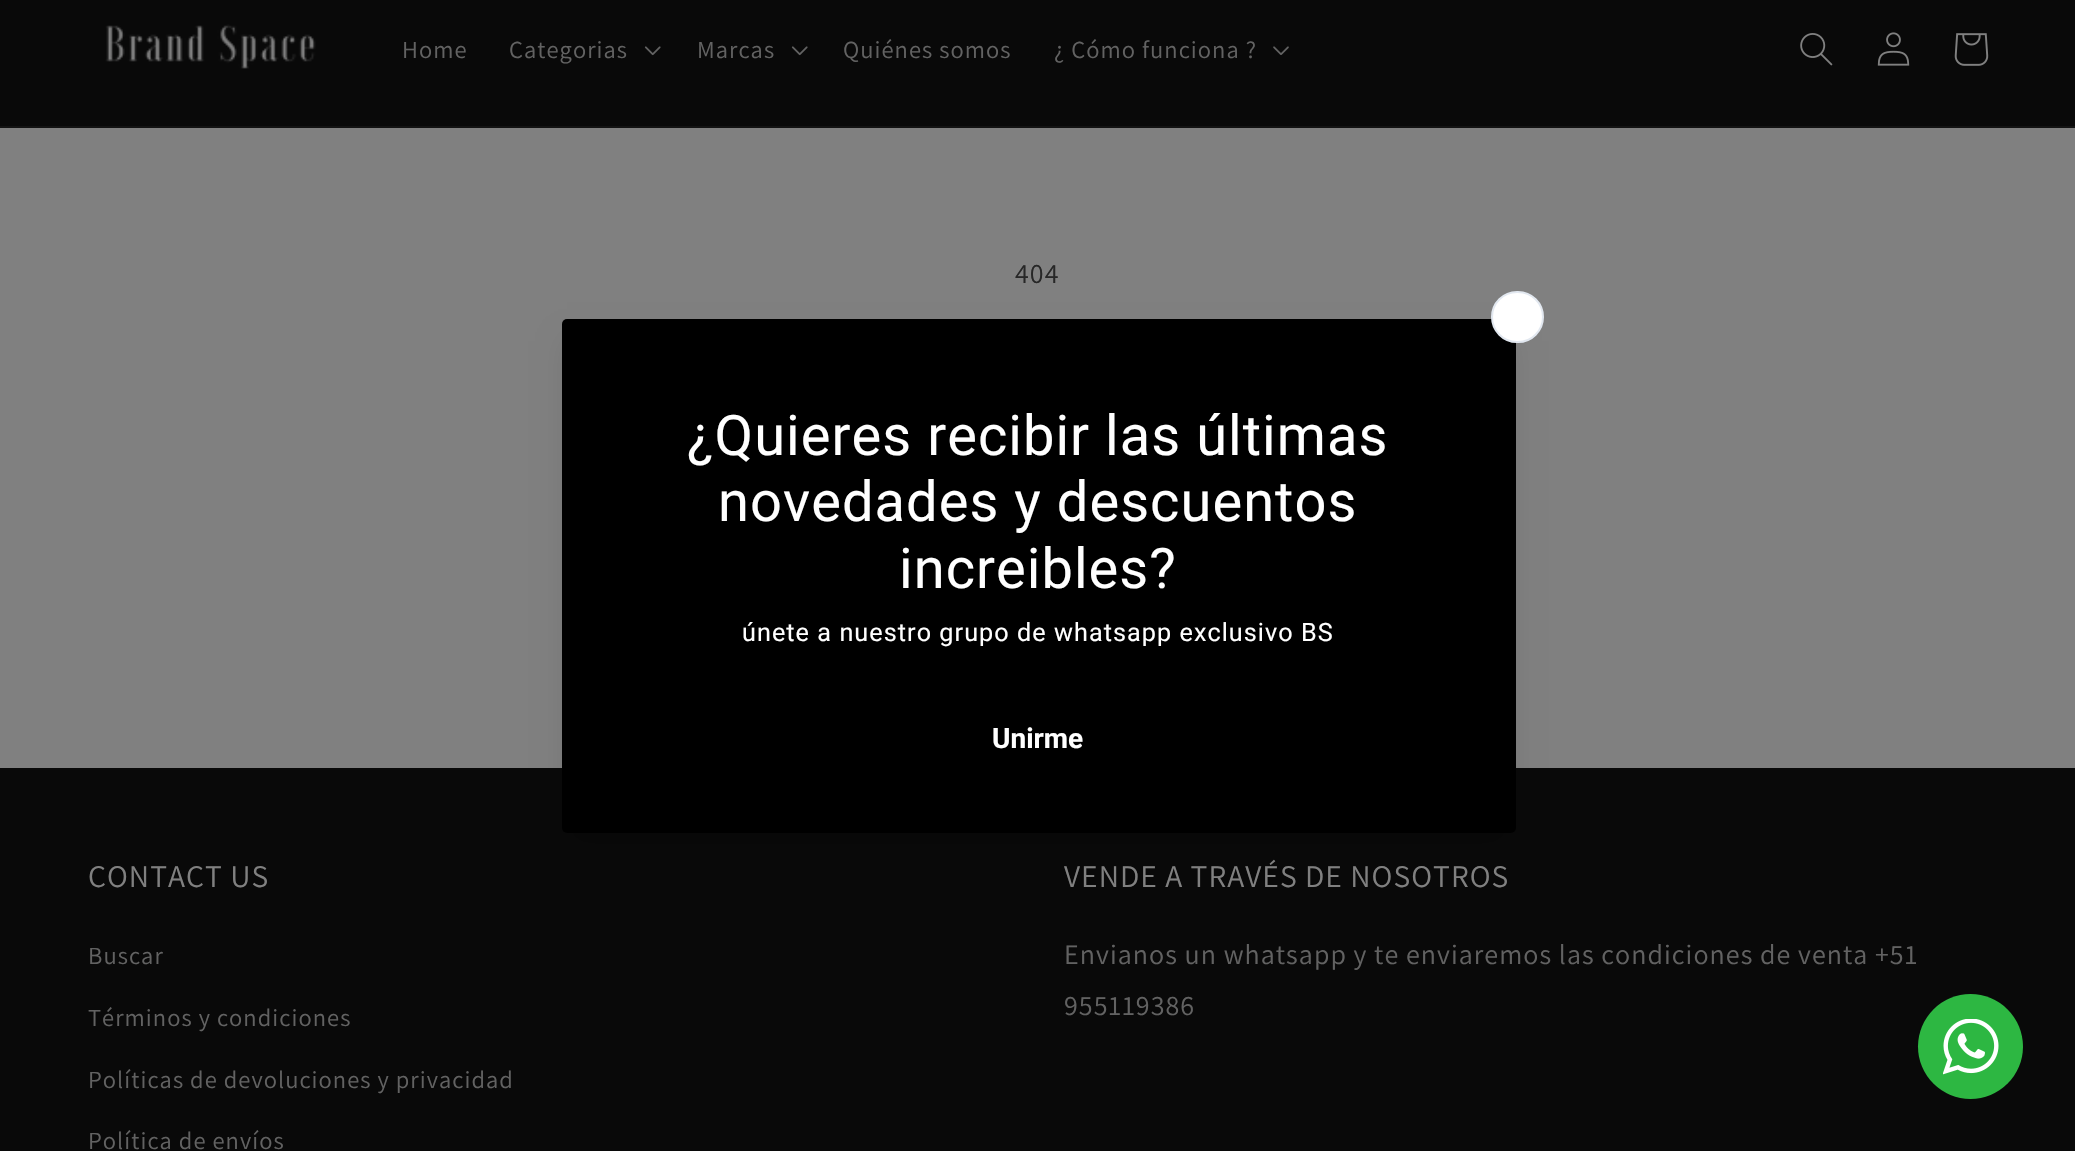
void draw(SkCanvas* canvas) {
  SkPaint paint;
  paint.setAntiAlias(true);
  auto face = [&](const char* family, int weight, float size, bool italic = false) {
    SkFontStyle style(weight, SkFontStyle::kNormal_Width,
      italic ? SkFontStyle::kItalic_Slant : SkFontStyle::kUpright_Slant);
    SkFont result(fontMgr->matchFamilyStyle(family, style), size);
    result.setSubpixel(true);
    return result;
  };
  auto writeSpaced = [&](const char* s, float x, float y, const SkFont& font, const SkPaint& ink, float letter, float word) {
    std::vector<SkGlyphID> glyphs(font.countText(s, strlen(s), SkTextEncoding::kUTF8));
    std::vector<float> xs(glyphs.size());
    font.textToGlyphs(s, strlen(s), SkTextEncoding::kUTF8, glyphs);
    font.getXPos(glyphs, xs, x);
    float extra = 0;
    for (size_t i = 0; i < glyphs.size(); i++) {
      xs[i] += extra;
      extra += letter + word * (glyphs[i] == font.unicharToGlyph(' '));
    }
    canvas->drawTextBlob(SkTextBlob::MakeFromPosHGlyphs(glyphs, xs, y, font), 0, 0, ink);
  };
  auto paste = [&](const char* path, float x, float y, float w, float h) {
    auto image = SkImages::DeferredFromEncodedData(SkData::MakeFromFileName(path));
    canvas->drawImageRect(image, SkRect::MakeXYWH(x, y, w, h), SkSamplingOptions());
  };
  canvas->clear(0xff808080);
  paint.setColor(0xff090909);
  canvas->drawRect(SkRect::MakeXYWH(0, 0, 2075, 126), paint);
  paint.setColor(0xff131313);
  canvas->drawRect(SkRect::MakeXYWH(0, 126, 2075, 2), paint);
  paste("img/1.png", 105, 24, 211, 45);
  paste("img/2.png", 644, 46, 17, 10);
  paste("img/2.png", 791, 46, 17, 10);
  paste("img/3.png", 1273, 46, 16, 9);
  paste("img/4.png", 1800, 33, 33, 33);
  paste("img/5.png", 1877, 32, 33, 34);
  paste("img/6.png", 1954, 33, 35, 33);
  paint.setColor(0xff090909);
  canvas->drawRect(SkRect::MakeXYWH(0, 768, 2075, 383), paint);
  paint.setColor(0x1a000000);
  paint.setMaskFilter(SkMaskFilter::MakeBlur(kNormal_SkBlurStyle, 13));
  canvas->drawRect(SkRect::MakeXYWH(567, 341, 943, 504), paint);
  paint.setMaskFilter(nullptr);
  canvas->save();
  canvas->clipRect(SkRect::MakeXYWH(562, 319, 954, 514));
  paint.setColor(0x1f000000);
  paint.setMaskFilter(SkMaskFilter::MakeBlur(kNormal_SkBlurStyle, 17.5f));
  canvas->drawRect(SkRect::MakeXYWH(567, 324, 943, 504), paint);
  paint.setMaskFilter(nullptr);
  canvas->restore();
  paint.setColor(0xff000000);
  canvas->drawRoundRect(SkRect::MakeXYWH(562, 319, 954, 514), 5, 5, paint);
  paint.setColor(0xffffffff);
  canvas->drawRoundRect(SkRect::MakeXYWH(1492, 292, 51, 50), 25, 25, paint);
  paint.setStroke(true);
  paint.setStrokeWidth(2);
  paint.setColor(0xffe2e8f0);
  canvas->drawRoundRect(SkRect::MakeXYWH(1492, 292, 51, 50), 25, 25, paint);
  paint.setStroke(false);
  paint.setColor(0xff2db742);
  canvas->drawCircle(1970.5f, 1046.5f, 52.5f, paint);
  paste("img/7.png", 1943, 1019, 56, 56);
  auto f0 = face("Assistant", 400, 24.5f);
  paint.setColor(0xff626262);
  {
    const struct { const char* s; float x, y; } items[] = {
      {"Home", 402, 58},
      {"Categorias", 509, 58},
      {"Marcas", 697, 58},
      {"Quiénes somos", 843, 58},
      {"¿ Cómo funciona ?", 1054, 58},
    };
    for (auto [s, x, y] : items) {
      writeSpaced(s, x, y, f0, paint, 1.05f, 0);
    }
  }
  auto f1 = face("Assistant", 400, 28);
  paint.setColor(0xff272727);
  writeSpaced("404", 1015, 283, f1, paint, 1.05f, 0);
  auto f2 = face("Roboto", 400, 56);
  paint.setColor(0xffffffff);
  {
    const struct { const char* s; float x, y; } items[] = {
      {"¿Quieres recibir las últimas", 687, 455},
      {"novedades y descuentos", 718, 521},
      {"increibles?", 899, 588},
    };
    for (auto [s, x, y] : items) {
      writeSpaced(s, x, y, f2, paint, 1.05f, 0);
    }
  }
  auto f3 = face("Roboto", 400, 25.2f);
  writeSpaced("únete a nuestro grupo de whatsapp exclusivo BS", 742, 641, f3, paint, 1.05f, 0);
  auto f4 = face("Roboto", 700, 28);
  canvas->drawString("Unirme", 992, 748, f4, paint);
  auto f5 = face("Assistant", 400, 31.5f);
  paint.setColor(0xff808080);
  writeSpaced("CONTACT US", 88, 887, f5, paint, 1.05f, 0);
  paint.setColor(0xff626262);
  {
    const struct { const char* s; float x, y; } items[] = {
      {"Buscar", 88, 964},
      {"Términos y condiciones", 88, 1026},
      {"Políticas de devoluciones y privacidad", 88, 1088},
      {"Política de envíos", 88, 1149},
    };
    for (auto [s, x, y] : items) {
      writeSpaced(s, x, y, f0, paint, 1.05f, 0);
    }
  }
  paint.setColor(0xff808080);
  writeSpaced("VENDE A TRAVÉS DE NOSOTROS", 1064, 887, f5, paint, 1.05f, 0);
  paint.setColor(0xff626262);
  writeSpaced("Envianos un whatsapp y te enviaremos las condiciones de venta +51", 1064, 964, f1, paint, 1.05f, 0);
  writeSpaced("955119386", 1064, 1015, f1, paint, 1.05f, 0);
}
